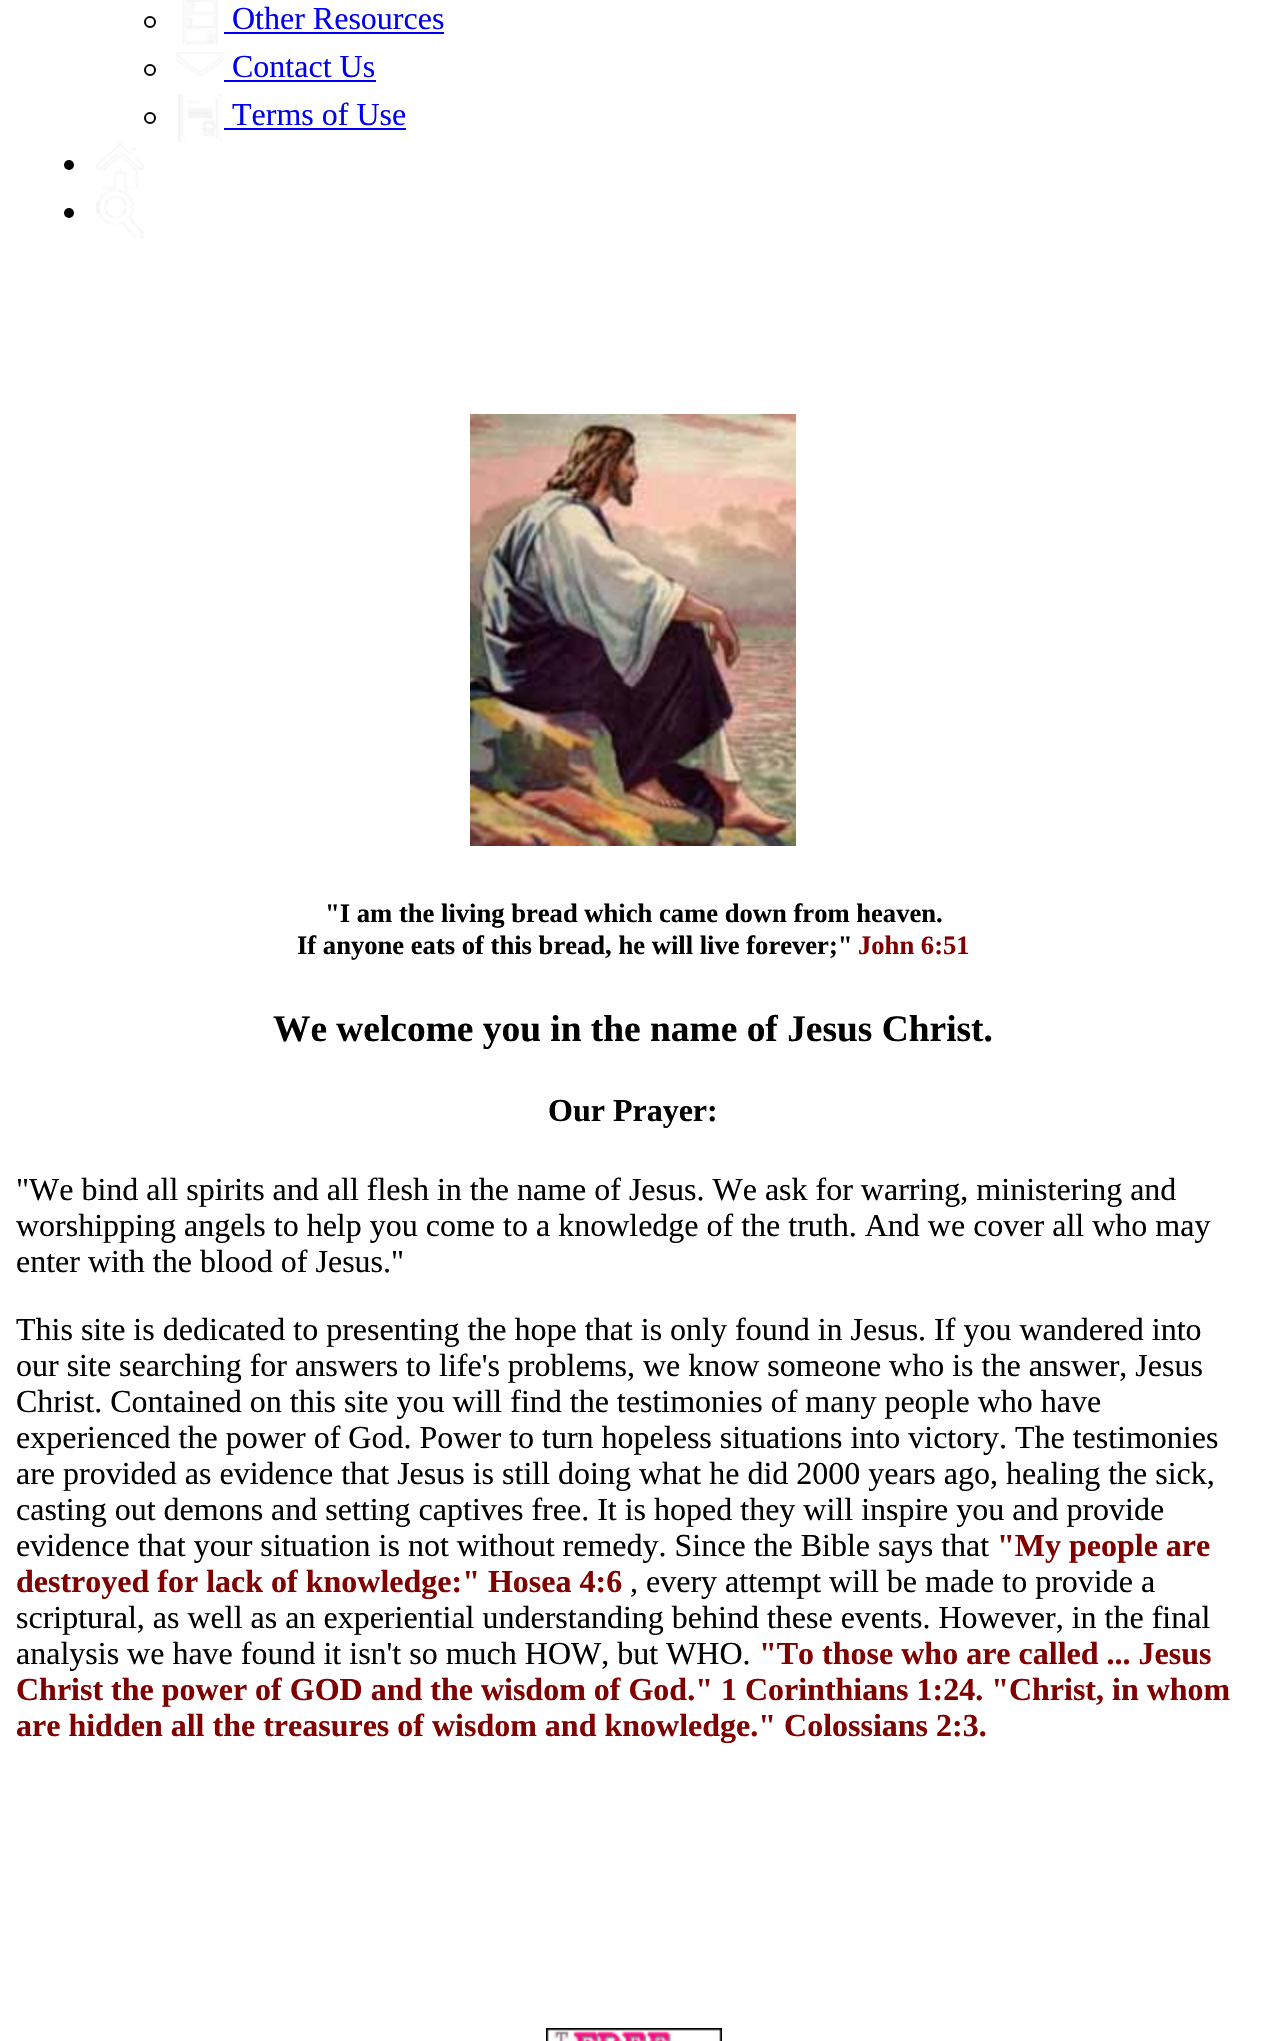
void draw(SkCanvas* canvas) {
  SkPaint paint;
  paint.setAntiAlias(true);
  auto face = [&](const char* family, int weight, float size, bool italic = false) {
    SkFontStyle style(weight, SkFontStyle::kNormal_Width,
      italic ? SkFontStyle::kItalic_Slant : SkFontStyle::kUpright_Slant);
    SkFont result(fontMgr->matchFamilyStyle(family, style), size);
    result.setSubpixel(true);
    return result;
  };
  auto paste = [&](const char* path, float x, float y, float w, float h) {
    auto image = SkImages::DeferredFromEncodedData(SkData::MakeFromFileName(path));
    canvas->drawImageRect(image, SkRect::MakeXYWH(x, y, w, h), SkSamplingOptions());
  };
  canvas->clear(0xffffffff);
  paint.setStroke(true);
  paint.setStrokeWidth(2);
  paint.setColor(0xff000000);
  canvas->drawCircle(150, 22, 5, paint);
  paste("img/1.png", 182, 0, 36, 46);
  paint.setStroke(false);
  paint.setColor(0xff0000ee);
  canvas->drawRect(SkRect::MakeXYWH(224, 32, 220, 2), paint);
  paint.setStroke(true);
  paint.setColor(0xff000000);
  canvas->drawCircle(150, 70, 5, paint);
  paste("img/2.png", 176, 52, 48, 24);
  paint.setStroke(false);
  paint.setColor(0xff0000ee);
  canvas->drawRect(SkRect::MakeXYWH(224, 80, 152, 2), paint);
  paint.setStroke(true);
  paint.setColor(0xff000000);
  canvas->drawCircle(150, 118, 5, paint);
  paste("img/3.png", 178, 94, 44, 48);
  paint.setStroke(false);
  paint.setColor(0xff0000ee);
  canvas->drawRect(SkRect::MakeXYWH(224, 128, 182, 2), paint);
  paint.setColor(0xff000000);
  canvas->drawCircle(69, 165, 5, paint);
  paste("img/4.png", 96, 142, 48, 48);
  canvas->drawCircle(69, 213, 5, paint);
  paste("img/5.png", 96, 190, 48, 48);
  paste("img/6.png", 470, 414, 326, 432);
  paste("img/7.png", 546, 2028, 176, 13);
  auto f0 = face("Liberation Serif", 400, 32);
  paint.setColor(0xff0000ee);
  {
    const struct { const char* s; float x, y; } items[] = {
      {"Other Resources", 232, 29},
      {"Contact Us", 232, 77},
      {"Terms of Use", 232, 125},
    };
    for (auto [s, x, y] : items) {
      canvas->drawString(s, x, y, f0, paint);
    }
  }
  auto f1 = face("Liberation Serif", 700, 26.6f);
  paint.setColor(0xff000000);
  canvas->drawString("\"I am the living bread which came down from heaven.", 325, 922, f1, paint);
  canvas->drawString("If anyone eats of this bread, he will live forever;\"", 297, 954, f1, paint);
  paint.setColor(0xff800000);
  canvas->drawString("John 6:51", 858, 954, f1, paint);
  auto f2 = face("Liberation Serif", 700, 37.4f);
  paint.setColor(0xff000000);
  canvas->drawString("We welcome you in the name of Jesus Christ.", 273, 1041, f2, paint);
  auto f3 = face("Liberation Serif", 700, 32);
  canvas->drawString("Our Prayer:", 548, 1121, f3, paint);
  {
    const struct { const char* s; float x, y; } items[] = {
      {"\"We bind all spirits and all flesh in the name of Jesus. We ask for warring, ministering and", 16, 1200},
      {"worshipping angels to help you come to a knowledge of the truth. And we cover all who may", 16, 1236},
      {"enter with the blood of Jesus.\"", 16, 1272},
      {"This site is dedicated to presenting the hope that is only found in Jesus. If you wandered into", 16, 1340},
      {"our site searching for answers to life's problems, we know someone who is the answer, Jesus", 16, 1376},
      {"Christ. Contained on this site you will find the testimonies of many people who have", 16, 1412},
      {"experienced the power of God. Power to turn hopeless situations into victory. The testimonies", 16, 1448},
      {"are provided as evidence that Jesus is still doing what he did 2000 years ago, healing the sick,", 16, 1484},
      {"casting out demons and setting captives free. It is hoped they will inspire you and provide", 16, 1520},
      {"evidence that your situation is not without remedy. Since the Bible says that", 16, 1556},
    };
    for (auto [s, x, y] : items) {
      canvas->drawString(s, x, y, f0, paint);
    }
  }
  paint.setColor(0xff800000);
  canvas->drawString("\"My people are", 997, 1556, f3, paint);
  canvas->drawString("destroyed for lack of knowledge:\" Hosea 4:6", 16, 1592, f3, paint);
  paint.setColor(0xff000000);
  {
    const struct { const char* s; float x, y; } items[] = {
      {", every attempt will be made to provide a", 630, 1592},
      {"scriptural, as well as an experiential understanding behind these events. However, in the final", 16, 1628},
      {"analysis we have found it isn't so much HOW, but WHO.", 16, 1664},
    };
    for (auto [s, x, y] : items) {
      canvas->drawString(s, x, y, f0, paint);
    }
  }
  paint.setColor(0xff800000);
  {
    const struct { const char* s; float x, y; } items[] = {
      {"\"To those who are called ... Jesus", 759, 1664},
      {"Christ the power of GOD and the wisdom of God.\" 1 Corinthians 1:24. \"Christ, in whom", 16, 1700},
      {"are hidden all the treasures of wisdom and knowledge.\" Colossians 2:3.", 16, 1736},
    };
    for (auto [s, x, y] : items) {
      canvas->drawString(s, x, y, f3, paint);
    }
  }
}
